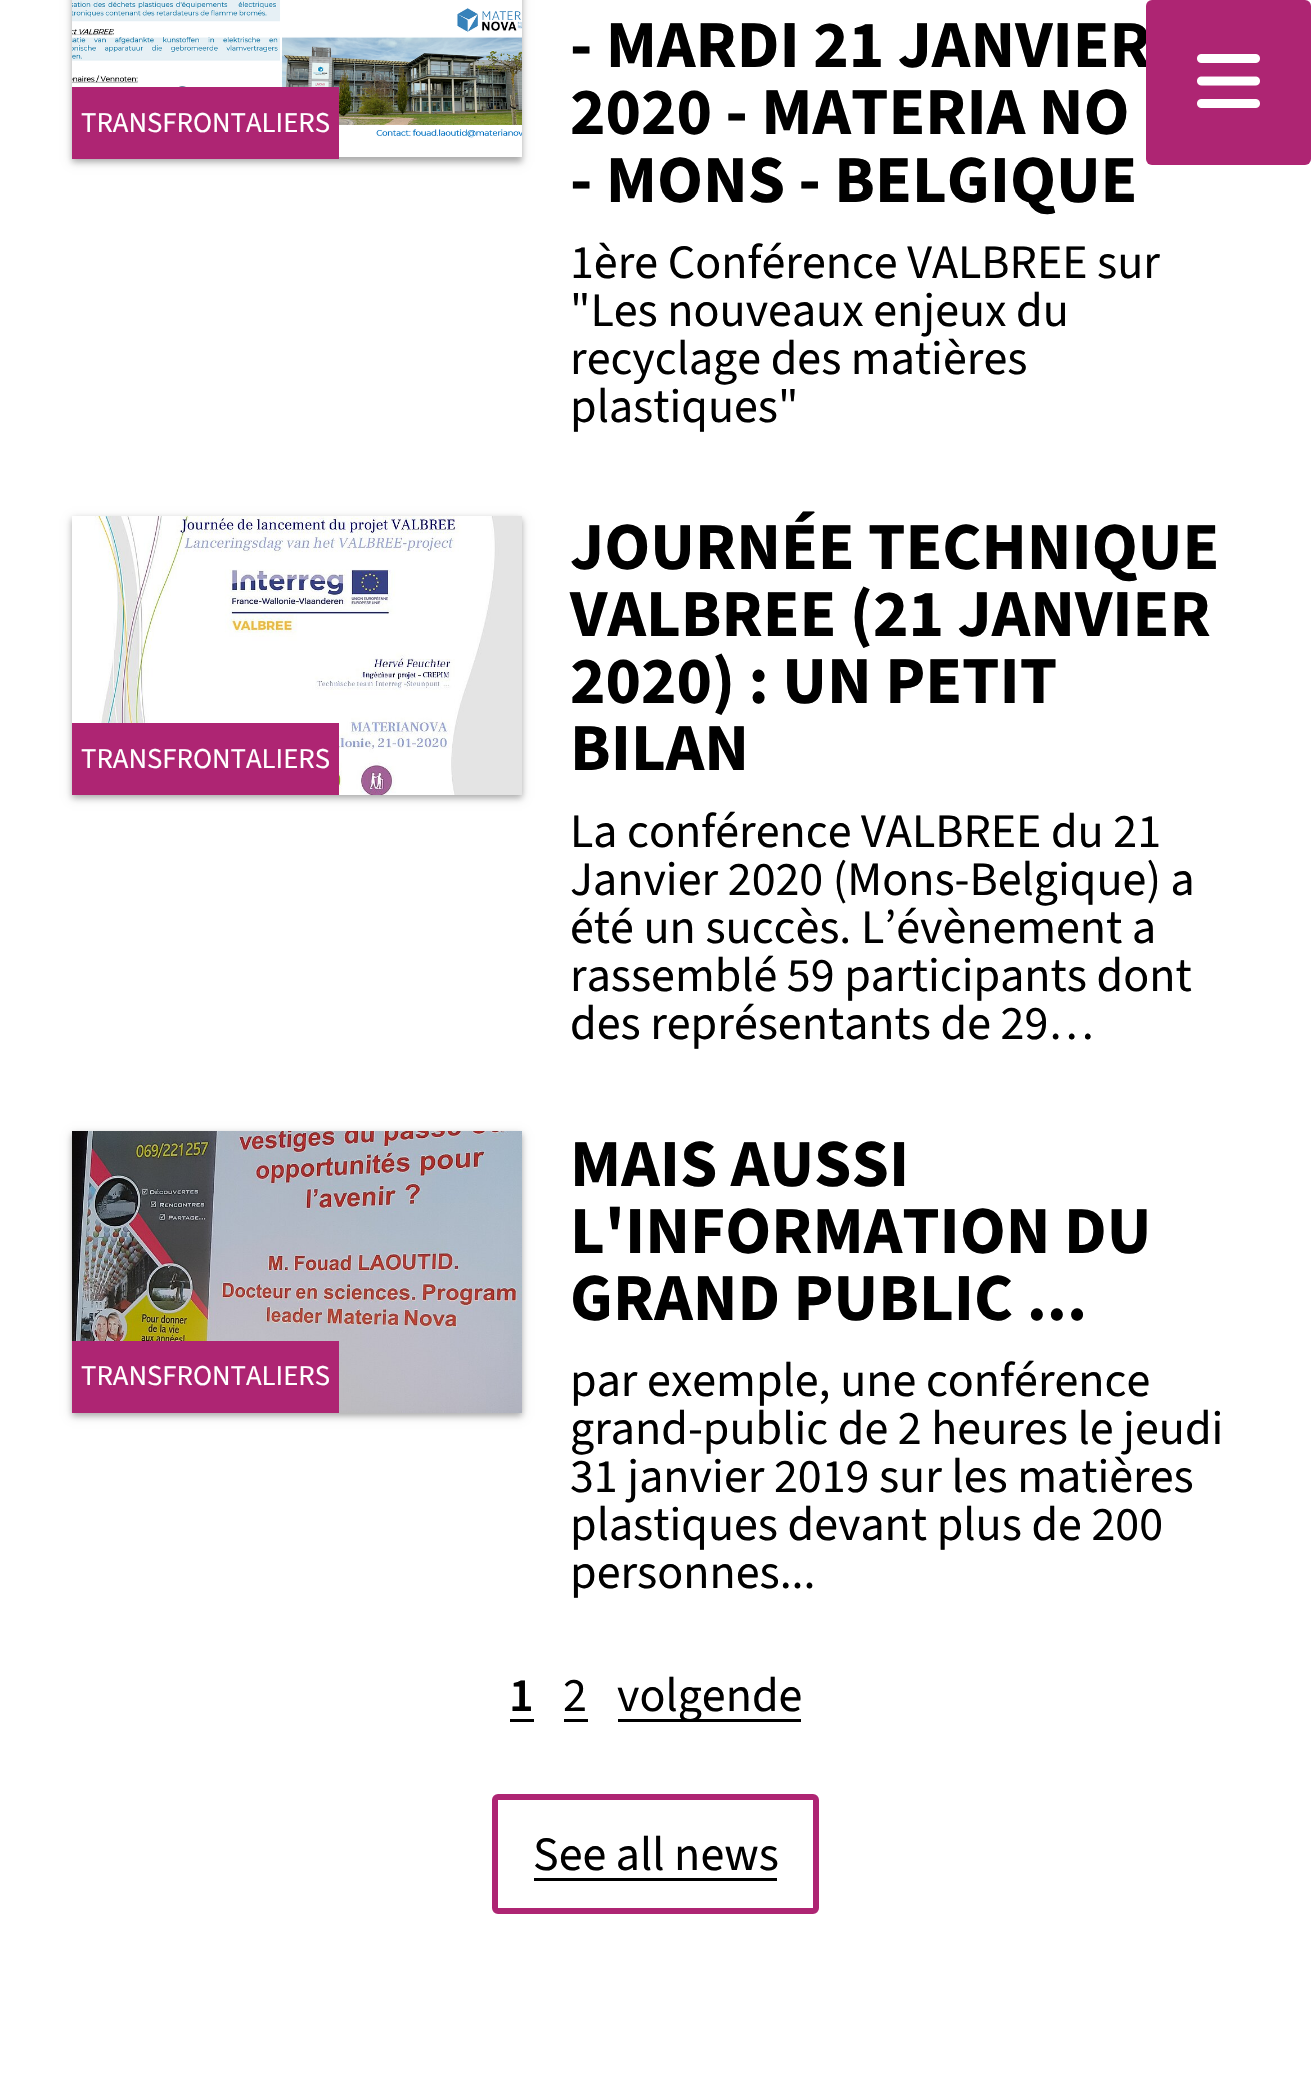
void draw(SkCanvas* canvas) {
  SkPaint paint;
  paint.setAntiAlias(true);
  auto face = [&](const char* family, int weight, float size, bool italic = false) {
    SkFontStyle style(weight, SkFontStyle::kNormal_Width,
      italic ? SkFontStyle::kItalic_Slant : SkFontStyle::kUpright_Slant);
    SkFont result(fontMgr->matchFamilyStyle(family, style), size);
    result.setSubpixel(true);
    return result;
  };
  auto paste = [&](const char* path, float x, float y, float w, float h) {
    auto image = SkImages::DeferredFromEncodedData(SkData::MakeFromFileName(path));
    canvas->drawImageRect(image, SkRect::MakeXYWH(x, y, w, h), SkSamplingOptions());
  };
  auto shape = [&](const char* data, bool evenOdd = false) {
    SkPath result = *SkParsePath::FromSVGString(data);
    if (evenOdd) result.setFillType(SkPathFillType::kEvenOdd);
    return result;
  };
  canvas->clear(0xffffffff);
  paint.setColor(0x3d000000);
  paint.setMaskFilter(SkMaskFilter::MakeBlur(kNormal_SkBlurStyle, 3));
  canvas->drawRect(SkRect::MakeXYWH(72, -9, 450, 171), paint);
  paint.setMaskFilter(nullptr);
  paint.setColor(0x1f000000);
  paint.setMaskFilter(SkMaskFilter::MakeBlur(kNormal_SkBlurStyle, 4.5f));
  canvas->drawRect(SkRect::MakeXYWH(72, -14, 450, 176), paint);
  paint.setMaskFilter(nullptr);
  paste("img/1.png", 72, 0, 450, 157);
  paint.setColor(0xffae2573);
  canvas->drawRect(SkRect::MakeXYWH(72, 87, 267, 72), paint);
  canvas->save();
  canvas->clipPath(shape("M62 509H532V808H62ZM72 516H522V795H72Z", true), true);
  paint.setColor(0x3d000000);
  paint.setMaskFilter(SkMaskFilter::MakeBlur(kNormal_SkBlurStyle, 3));
  canvas->drawRect(SkRect::MakeXYWH(72, 519, 450, 279), paint);
  paint.setMaskFilter(nullptr);
  canvas->restore();
  canvas->save();
  canvas->clipPath(shape("M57 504H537V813H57ZM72 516H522V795H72Z", true), true);
  paint.setColor(0x1f000000);
  paint.setMaskFilter(SkMaskFilter::MakeBlur(kNormal_SkBlurStyle, 4.5f));
  canvas->drawRect(SkRect::MakeXYWH(72, 519, 450, 279), paint);
  paint.setMaskFilter(nullptr);
  canvas->restore();
  paste("img/2.png", 91, 516, 431, 279);
  paint.setColor(0xffae2573);
  canvas->drawRect(SkRect::MakeXYWH(72, 723, 267, 72), paint);
  paint.setColor(0x3d000000);
  paint.setMaskFilter(SkMaskFilter::MakeBlur(kNormal_SkBlurStyle, 3));
  canvas->drawRect(SkRect::MakeXYWH(72, 1134, 450, 282), paint);
  paint.setMaskFilter(nullptr);
  paint.setColor(0x1f000000);
  paint.setMaskFilter(SkMaskFilter::MakeBlur(kNormal_SkBlurStyle, 4.5f));
  canvas->drawRect(SkRect::MakeXYWH(72, 1134, 450, 282), paint);
  paint.setMaskFilter(nullptr);
  paste("img/3.png", 72, 1131, 450, 282);
  {
    const struct { float x, y, w, h; SkColor color; } items[] = {
      {72, 1341, 267, 72, 0xffae2573},
      {510, 1719, 24, 3, 0xff000000},
      {564, 1719, 24, 3, 0xff000000},
      {618, 1719, 183, 3, 0xff000000},
    };
    for (auto [x, y, w, h, color] : items) {
      paint.setColor(color);
      canvas->drawRect(SkRect::MakeXYWH(x, y, w, h), paint);
    }
  }
  paint.setStroke(true);
  paint.setStrokeWidth(6);
  paint.setColor(0xffae2573);
  canvas->drawRoundRect(SkRect::MakeXYWH(495, 1797, 321, 114), 3, 3, paint);
  paint.setStroke(false);
  paint.setColor(0xff000000);
  canvas->drawRect(SkRect::MakeXYWH(534, 1878, 243, 3), paint);
  auto f0 = face("Source Sans 3", 400, 28.75f);
  paint.setColor(0xffffffff);
  canvas->drawString("TRANSFRONTALIERS", 81, 132, f0, paint);
  auto f1 = face("Source Sans 3", 700, 67.25f);
  paint.setColor(0xff000000);
  {
    const struct { const char* s; float x, y; } items[] = {
      {"- MARDI 21 JANVIER", 570, 67},
      {"2020 - MATERIA NO", 570, 134},
      {"- MONS - BELGIQUE", 570, 202},
    };
    for (auto [s, x, y] : items) {
      canvas->drawString(s, x, y, f1, paint);
    }
  }
  auto f2 = face("Source Sans 3", 400, 48);
  {
    const struct { const char* s; float x, y; } items[] = {
      {"1ère Conférence VALBREE sur", 570, 278},
      {"\"Les nouveaux enjeux du", 570, 326},
      {"recyclage des matières", 570, 374},
      {"plastiques\"", 570, 422},
    };
    for (auto [s, x, y] : items) {
      canvas->drawString(s, x, y, f2, paint);
    }
  }
  paint.setColor(0xffffffff);
  canvas->drawString("TRANSFRONTALIERS", 81, 768, f0, paint);
  paint.setColor(0xff000000);
  {
    const struct { const char* s; float x, y; } items[] = {
      {"JOURNÉE TECHNIQUE", 570, 569},
      {"VALBREE (21 JANVIER", 570, 636},
      {"2020) : UN PETIT", 570, 703},
      {"BILAN", 570, 770},
    };
    for (auto [s, x, y] : items) {
      canvas->drawString(s, x, y, f1, paint);
    }
  }
  {
    const struct { const char* s; float x, y; } items[] = {
      {"La conférence VALBREE du 21", 570, 847},
      {"Janvier 2020 (Mons-Belgique) a", 570, 895},
      {"été un succès. L’évènement a", 570, 943},
      {"rassemblé 59 participants dont", 570, 991},
      {"des représentants de 29…", 570, 1039},
    };
    for (auto [s, x, y] : items) {
      canvas->drawString(s, x, y, f2, paint);
    }
  }
  paint.setColor(0xffffffff);
  canvas->drawString("TRANSFRONTALIERS", 81, 1385, f0, paint);
  paint.setColor(0xff000000);
  {
    const struct { const char* s; float x, y; } items[] = {
      {"MAIS AUSSI", 570, 1186},
      {"L'INFORMATION DU", 570, 1253},
      {"GRAND PUBLIC ...", 570, 1320},
    };
    for (auto [s, x, y] : items) {
      canvas->drawString(s, x, y, f1, paint);
    }
  }
  {
    const struct { const char* s; float x, y; } items[] = {
      {"par exemple, une conférence", 570, 1396},
      {"grand-public de 2 heures le jeudi", 570, 1444},
      {"31 janvier 2019 sur les matières", 570, 1492},
      {"plastiques devant plus de 200", 570, 1540},
      {"personnes...", 570, 1588},
    };
    for (auto [s, x, y] : items) {
      canvas->drawString(s, x, y, f2, paint);
    }
  }
  auto f3 = face("Source Sans 3", 600, 48);
  canvas->drawString("1", 509, 1711, f3, paint);
  {
    const struct { const char* s; float x, y; } items[] = {
      {"2", 563, 1711},
      {"volgende", 617, 1711},
      {"See all news", 533, 1870},
    };
    for (auto [s, x, y] : items) {
      canvas->drawString(s, x, y, f2, paint);
    }
  }
  paint.setColor(0xffae2573);
  canvas->drawRoundRect(SkRect::MakeXYWH(1146, 0, 165, 165), 6, 6, paint);
  paste("img/4.png", 1197, 54, 63, 54);
}
